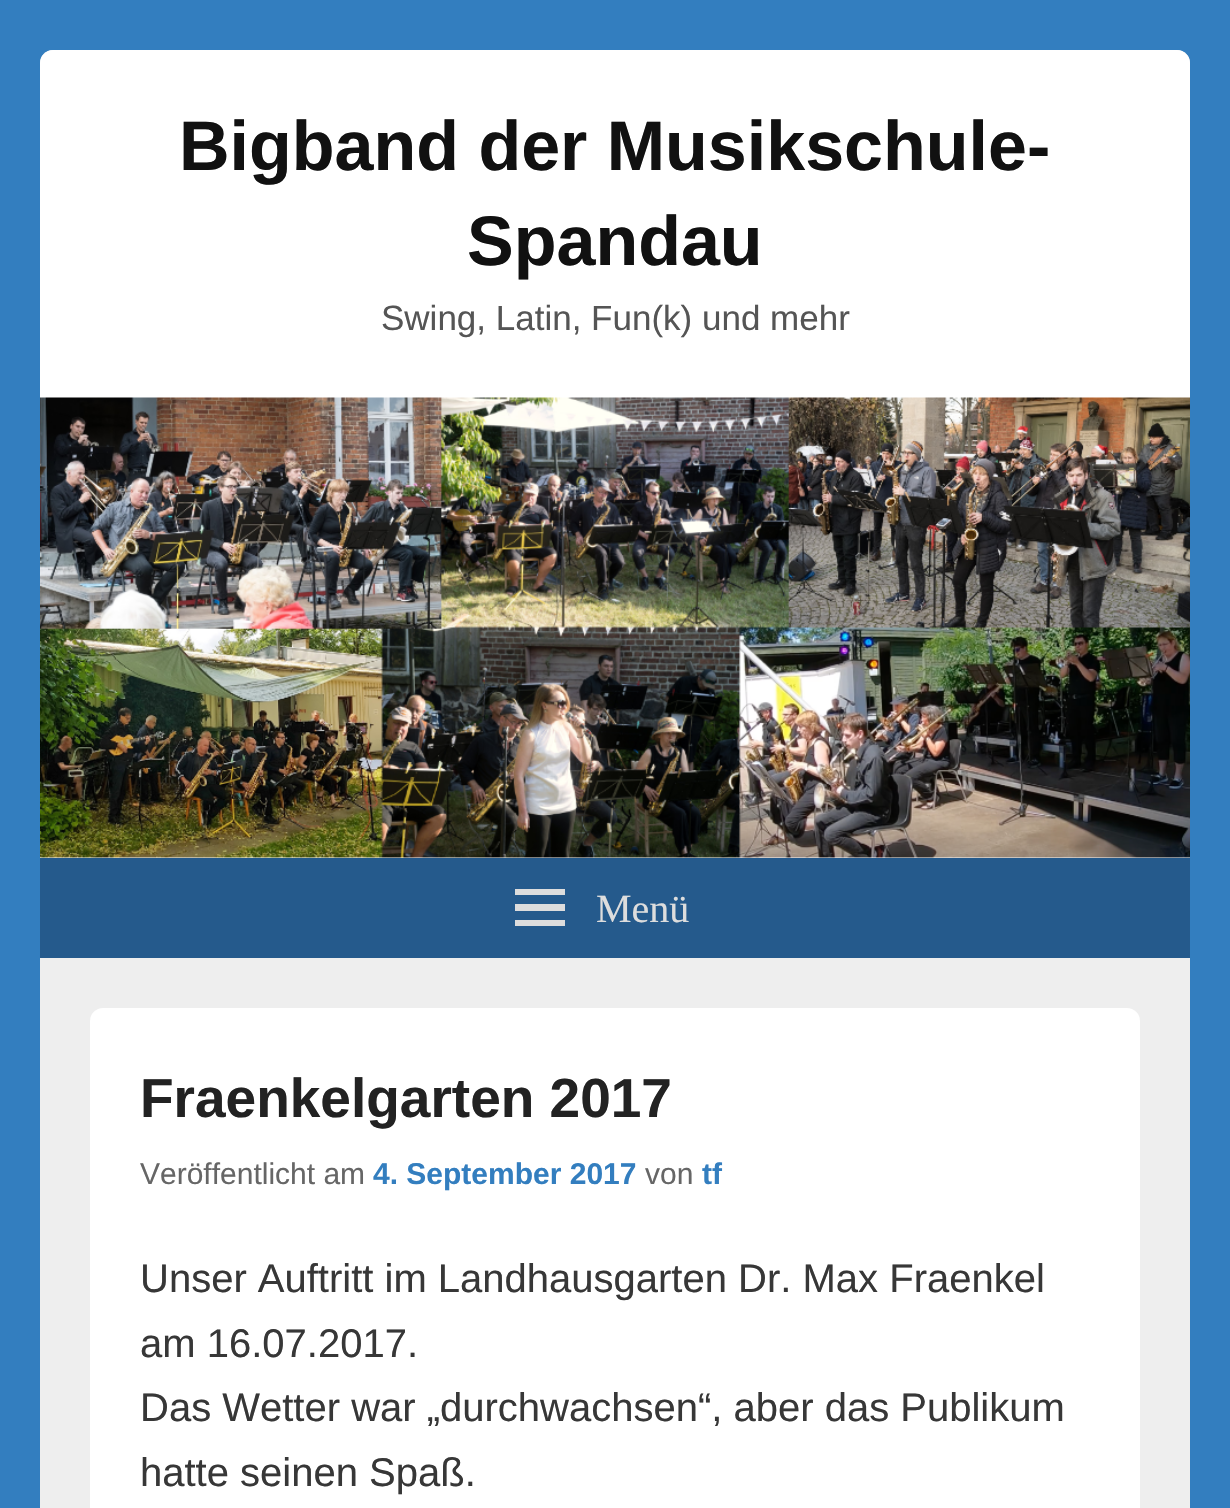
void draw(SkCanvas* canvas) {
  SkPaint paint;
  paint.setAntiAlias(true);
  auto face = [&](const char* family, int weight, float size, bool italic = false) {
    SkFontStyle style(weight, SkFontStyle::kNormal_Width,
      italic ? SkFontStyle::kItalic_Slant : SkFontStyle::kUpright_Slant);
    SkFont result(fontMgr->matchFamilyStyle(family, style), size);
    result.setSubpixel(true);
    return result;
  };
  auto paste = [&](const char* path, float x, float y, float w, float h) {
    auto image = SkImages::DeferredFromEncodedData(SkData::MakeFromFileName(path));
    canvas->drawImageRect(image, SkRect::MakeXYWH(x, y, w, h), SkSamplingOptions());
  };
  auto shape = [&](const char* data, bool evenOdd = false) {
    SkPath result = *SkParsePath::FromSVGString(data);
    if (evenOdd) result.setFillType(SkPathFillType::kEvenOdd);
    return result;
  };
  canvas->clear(0xff337ebf);
  paint.setColor(0xffeeeeee);
  canvas->drawRoundRect(SkRect::MakeXYWH(40, 50, 1150, 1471), 13, 13, paint);
  paint.setColor(0xffffffff);
  canvas->drawPath(shape("M53 50H1177C1184 50 1190 56 1190 63V958H40V63C40 56 46 50 53 50Z"), paint);
  paste("img/1.png", 40, 397, 1150, 461);
  paint.setColor(0xff255a8c);
  canvas->drawRect(SkRect::MakeXYWH(40, 858, 1150, 100), paint);
  paint.setColor(0xffdddddd);
  canvas->drawPath(shape("M515 926V920H565V926ZM515 889H565V895H515ZM515 911V904H565V911Z"), paint);
  paint.setColor(0xffffffff);
  canvas->drawRoundRect(SkRect::MakeXYWH(90, 1008, 1050, 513), 13, 13, paint);
  auto f0 = face("Liberation Sans", 700, 70);
  paint.setColor(0xff111111);
  canvas->drawString("Bigband der Musikschule-", 179, 170, f0, paint);
  canvas->drawString("Spandau", 467, 265, f0, paint);
  auto f1 = face("Liberation Sans", 400, 35);
  paint.setColor(0xff555555);
  canvas->drawString("Swing, Latin, Fun(k) und mehr", 381, 330, f1, paint);
  auto f2 = face("Liberation Serif", 400, 40);
  paint.setColor(0xffdddddd);
  canvas->drawString("Menü", 596, 922, f2, paint);
  auto f3 = face("Liberation Sans", 700, 55);
  paint.setColor(0xff222222);
  canvas->drawString("Fraenkelgarten 2017", 140, 1117, f3, paint);
  auto f4 = face("Liberation Sans", 400, 30);
  paint.setColor(0xff666666);
  canvas->drawString("Veröffentlicht am", 140, 1184, f4, paint);
  auto f5 = face("Liberation Sans", 700, 30);
  paint.setColor(0xff337ebf);
  canvas->drawString("4. September 2017", 373, 1184, f5, paint);
  paint.setColor(0xff666666);
  canvas->drawString("von", 645, 1184, f4, paint);
  paint.setColor(0xff337ebf);
  canvas->drawString("tf", 702, 1184, f5, paint);
  auto f6 = face("Liberation Sans", 400, 40);
  paint.setColor(0xff373737);
  {
    const struct { const char* s; float x, y; } items[] = {
      {"Unser Auftritt im Landhausgarten Dr. Max Fraenkel", 140, 1292},
      {"am 16.07.2017.", 140, 1357},
      {"Das Wetter war „durchwachsen“, aber das Publikum", 140, 1421},
      {"hatte seinen Spaß.", 140, 1486},
    };
    for (auto [s, x, y] : items) {
      canvas->drawString(s, x, y, f6, paint);
    }
  }
}
